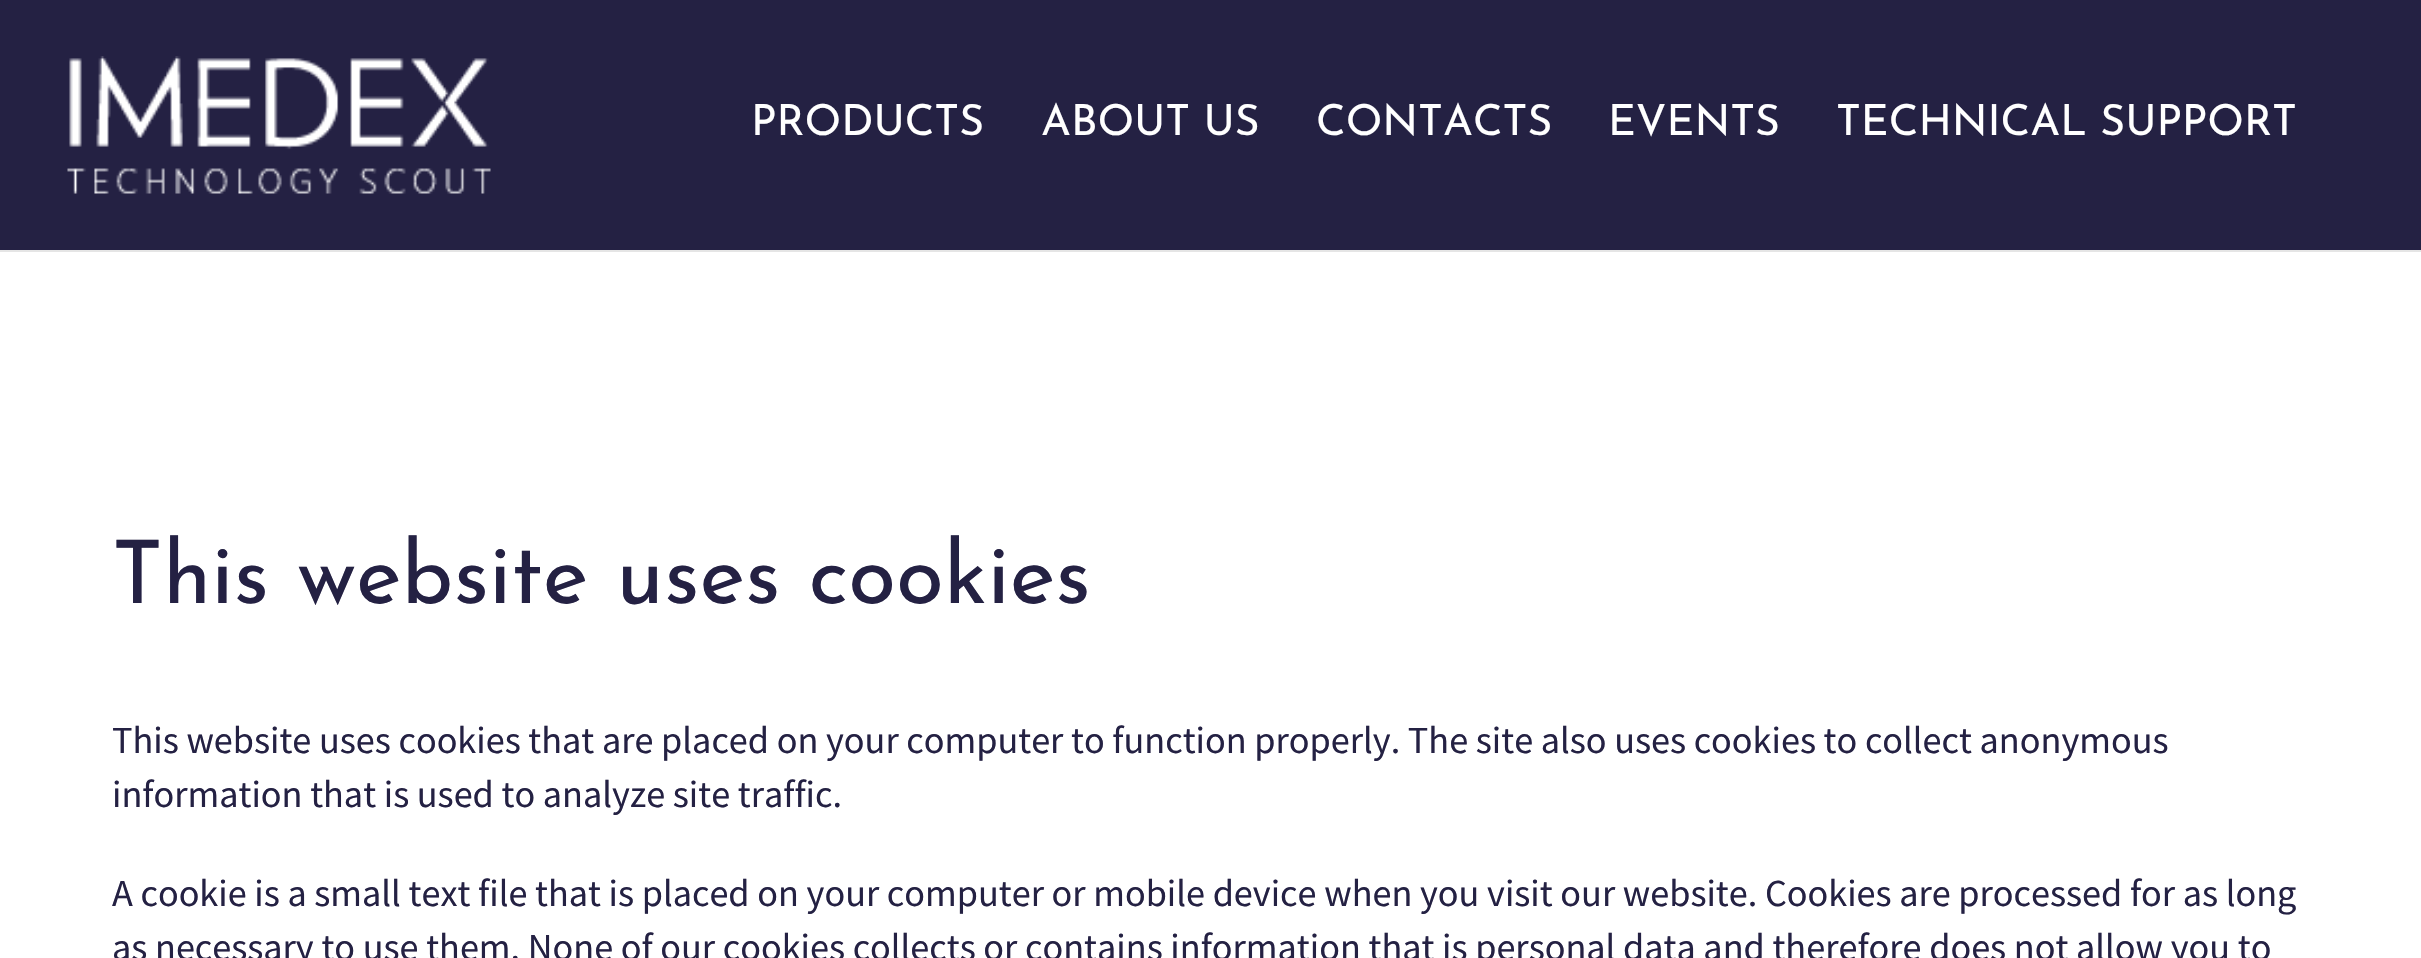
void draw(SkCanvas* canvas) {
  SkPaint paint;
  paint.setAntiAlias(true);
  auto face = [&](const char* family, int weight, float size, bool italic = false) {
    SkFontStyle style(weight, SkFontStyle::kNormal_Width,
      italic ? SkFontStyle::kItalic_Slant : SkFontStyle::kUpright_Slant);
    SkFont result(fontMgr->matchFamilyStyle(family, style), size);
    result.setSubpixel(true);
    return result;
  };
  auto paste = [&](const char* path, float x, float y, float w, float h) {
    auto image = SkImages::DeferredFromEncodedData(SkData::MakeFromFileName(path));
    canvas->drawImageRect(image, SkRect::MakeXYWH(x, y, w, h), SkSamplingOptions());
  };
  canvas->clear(0xffffffff);
  paint.setColor(0xff242143);
  canvas->drawRect(SkRect::MakeXYWH(0, 0, 2421, 250), paint);
  paint.setColor(0xffe5e5e5);
  canvas->drawRect(SkRect::MakeXYWH(0, 250, 2421, 2), paint);
  paste("img/1.png", 67, 56, 424, 138);
  auto f0 = face("Josefin Sans", 400, 42.75f);
  paint.setColor(0xffffffff);
  {
    const struct { const char* s; float x, y; } items[] = {
      {"PRODUCTS", 751, 135},
      {"ABOUT US", 1041, 135},
      {"CONTACTS", 1316, 135},
      {"EVENTS", 1608, 135},
      {"TECHNICAL SUPPORT", 1836, 135},
    };
    for (auto [s, x, y] : items) {
      canvas->drawString(s, x, y, f0, paint);
    }
  }
  auto f1 = face("Josefin Sans", 400, 87.6f);
  paint.setColor(0xff242143);
  canvas->drawString("This website uses cookies", 112, 603, f1, paint);
  auto f2 = face("Source Sans Pro", 400, 38.25f);
  {
    const struct { const char* s; float x, y; } items[] = {
      {"This website uses cookies that are placed on your computer to function properly. The site also uses cookies to collect anonymous", 112, 753},
      {"information that is used to analyze site traffic.", 112, 807},
      {"A cookie is a small text file that is placed on your computer or mobile device when you visit our website. Cookies are processed for as long", 112, 906},
      {"as necessary to use them. None of our cookies collects or contains information that is personal data and therefore does not allow you to", 112, 960},
    };
    for (auto [s, x, y] : items) {
      canvas->drawString(s, x, y, f2, paint);
    }
  }
}
